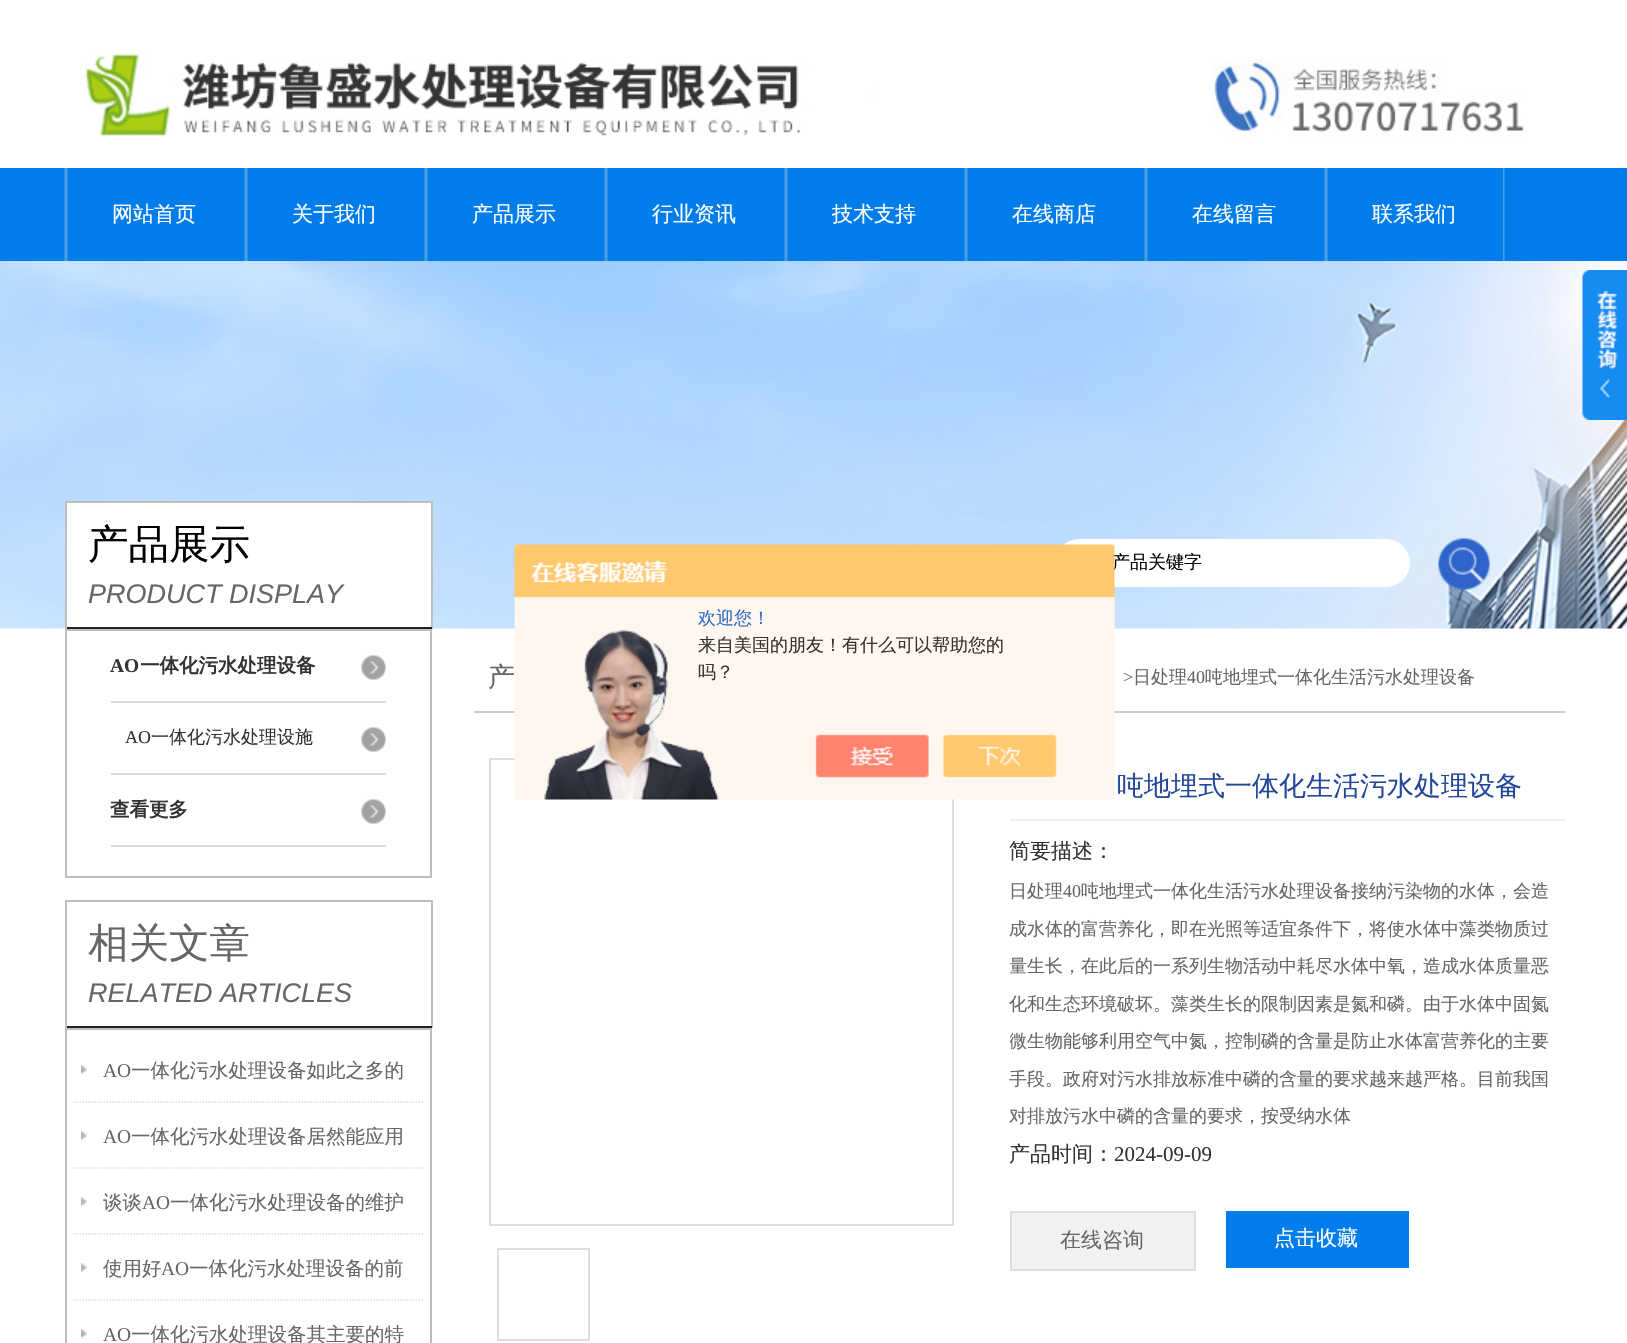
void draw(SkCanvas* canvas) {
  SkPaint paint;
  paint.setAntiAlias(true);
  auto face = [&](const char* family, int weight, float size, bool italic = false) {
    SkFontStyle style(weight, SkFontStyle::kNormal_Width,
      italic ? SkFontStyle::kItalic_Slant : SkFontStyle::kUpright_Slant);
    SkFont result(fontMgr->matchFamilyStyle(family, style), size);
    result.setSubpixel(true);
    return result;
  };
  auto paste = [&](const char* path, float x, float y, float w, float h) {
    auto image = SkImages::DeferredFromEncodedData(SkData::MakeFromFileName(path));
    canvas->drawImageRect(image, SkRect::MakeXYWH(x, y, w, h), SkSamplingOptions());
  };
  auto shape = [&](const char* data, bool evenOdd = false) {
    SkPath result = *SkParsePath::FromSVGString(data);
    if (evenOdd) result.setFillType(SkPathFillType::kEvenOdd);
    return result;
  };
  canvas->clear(0xffffffff);
  paste("img/1.png", 85, 53, 794, 83);
  paste("img/2.png", 1212, 58, 313, 80);
  paint.setColor(0xff007deb);
  canvas->drawRect(SkRect::MakeXYWH(0, 168, 1627, 93), paint);
  paste("img/3.png", 64, 168, 4, 93);
  paste("img/3.png", 244, 168, 4, 93);
  paste("img/3.png", 424, 168, 4, 93);
  paste("img/3.png", 604, 168, 4, 93);
  paste("img/3.png", 784, 168, 4, 93);
  paste("img/3.png", 964, 168, 4, 93);
  paste("img/3.png", 1144, 168, 4, 93);
  paste("img/3.png", 1324, 168, 4, 93);
  paste("img/4.png", 1503, 168, 2, 93);
  paste("img/5.png", 0, 261, 1627, 368);
  paste("img/6.png", 1582, 270, 45, 150);
  {
    const struct { float x, y, w, h; SkColor color; } items[] = {
      {67, 503, 364, 124, 0xffffffff},
      {65, 501, 367, 2, 0xffbebebe},
      {431, 501, 2, 128, 0xffbebebe},
      {65, 627, 367, 2, 0xff23201d},
      {65, 501, 2, 128, 0xffbebebe},
    };
    for (auto [x, y, w, h, color] : items) {
      paint.setColor(color);
      canvas->drawRect(SkRect::MakeXYWH(x, y, w, h), paint);
    }
  }
  paint.setColor(0xffffffff);
  canvas->drawRoundRect(SkRect::MakeXYWH(1055, 539, 355, 48), 24, 24, paint);
  paste("img/7.png", 1438, 538, 52, 52);
  paint.setStroke(true);
  paint.setStrokeWidth(2);
  paint.setColor(0xffbebebe);
  canvas->drawRect(SkRect::MakeXYWH(66, 630, 365, 247), paint);
  paste("img/8.png", 361, 655, 25, 25);
  paint.setStroke(false);
  paint.setColor(0xffdddddd);
  canvas->drawRect(SkRect::MakeXYWH(111, 701, 275, 2), paint);
  paste("img/8.png", 361, 727, 25, 25);
  canvas->drawRect(SkRect::MakeXYWH(111, 773, 275, 2), paint);
  paste("img/8.png", 361, 799, 25, 25);
  {
    const struct { float x, y, w, h; SkColor color; } items[] = {
      {111, 845, 275, 2, 0xffdddddd},
      {65, 900, 367, 2, 0xffbebebe},
      {431, 900, 2, 128, 0xffbebebe},
      {65, 1026, 367, 2, 0xff23201d},
      {65, 900, 2, 128, 0xffbebebe},
    };
    for (auto [x, y, w, h, color] : items) {
      paint.setColor(color);
      canvas->drawRect(SkRect::MakeXYWH(x, y, w, h), paint);
    }
  }
  paint.setStroke(true);
  canvas->drawRect(SkRect::MakeXYWH(66, 1029, 365, 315), paint);
  paste("img/9.png", 81, 1065, 6, 9);
  paint.setStrokeWidth(1.5f);
  paint.setColor(0xffdddddd);
  paint.setPathEffect(SkDashPathEffect::Make({{1.5f, 1.5f}}, 0));
  canvas->drawPath(shape("M73.5 1102H423"), paint);
  paint.setPathEffect(nullptr);
  paste("img/9.png", 81, 1131, 6, 9);
  paint.setPathEffect(SkDashPathEffect::Make({{1.5f, 1.5f}}, 0));
  canvas->drawPath(shape("M73.5 1168H423"), paint);
  paint.setPathEffect(nullptr);
  paste("img/9.png", 81, 1197, 6, 9);
  paint.setPathEffect(SkDashPathEffect::Make({{1.5f, 1.5f}}, 0));
  canvas->drawPath(shape("M73.5 1234H423"), paint);
  paint.setPathEffect(nullptr);
  paste("img/9.png", 81, 1263, 6, 9);
  paint.setPathEffect(SkDashPathEffect::Make({{1.5f, 1.5f}}, 0));
  canvas->drawPath(shape("M73.5 1300H423"), paint);
  paint.setPathEffect(nullptr);
  paste("img/9.png", 81, 1329, 6, 9);
  paint.setStroke(false);
  paint.setColor(0xffcccccc);
  canvas->drawRect(SkRect::MakeXYWH(474, 711, 1091, 2), paint);
  paint.setStroke(true);
  paint.setStrokeWidth(2);
  paint.setColor(0xffdddddd);
  canvas->drawRect(SkRect::MakeXYWH(490, 759, 463, 466), paint);
  canvas->drawRect(SkRect::MakeXYWH(498, 1249, 91, 91), paint);
  paint.setStroke(false);
  paint.setColor(0xffeeeeee);
  canvas->drawRect(SkRect::MakeXYWH(1010, 819, 555, 2), paint);
  paint.setColor(0xfff1f1f1);
  canvas->drawRect(SkRect::MakeXYWH(1011, 1212, 184, 58), paint);
  paint.setStroke(true);
  paint.setColor(0xffdddddd);
  canvas->drawRect(SkRect::MakeXYWH(1011, 1212, 184, 58), paint);
  paint.setStroke(false);
  paint.setColor(0xff007deb);
  canvas->drawRect(SkRect::MakeXYWH(1226, 1211, 183, 57), paint);
  auto f0 = face("WenQuanYi Zen Hei", 500, 21);
  paint.setColor(0xffffffff);
  {
    const struct { const char* s; float x, y; } items[] = {
      {"网站首页", 112, 221},
      {"关于我们", 292, 221},
      {"产品展示", 472, 221},
      {"行业资讯", 652, 221},
      {"技术支持", 832, 221},
      {"在线商店", 1012, 221},
      {"在线留言", 1192, 221},
      {"联系我们", 1372, 221},
    };
    for (auto [s, x, y] : items) {
      canvas->drawString(s, x, y, f0, paint);
    }
  }
  auto f1 = face("WenQuanYi Zen Hei", 500, 40.5f);
  paint.setColor(0xff000000);
  canvas->drawString("产品展示", 88, 558, f1, paint);
  auto f2 = face("Liberation Sans", 400, 27, true);
  paint.setColor(0xff666666);
  canvas->drawString("PRODUCT DISPLAY", 88, 603, f2, paint);
  auto f3 = face("WenQuanYi Zen Hei", 500, 18);
  paint.setColor(0xff000000);
  canvas->drawString("产品关键字", 1112, 568, f3, paint);
  auto f4 = face("Liberation Serif", 700, 19.5f);
  paint.setColor(0xff333333);
  canvas->drawString("AO", 110, 672, f4, paint);
  auto f5 = face("WenQuanYi Zen Hei", 700, 19.5f);
  canvas->drawString("一体化污水处理设备", 140, 672, f5, paint);
  auto f6 = face("Liberation Serif", 400, 18);
  canvas->drawString("AO", 125, 743, f6, paint);
  canvas->drawString("一体化污水处理设施", 151, 743, f3, paint);
  canvas->drawString("查看更多", 110, 816, f5, paint);
  paint.setColor(0xff666666);
  canvas->drawString("相关文章", 88, 957, f1, paint);
  canvas->drawString("RELATED ARTICLES", 88, 1002, f2, paint);
  auto f7 = face("Liberation Serif", 400, 19.5f);
  canvas->drawString("AO", 103, 1077, f7, paint);
  auto f8 = face("WenQuanYi Zen Hei", 500, 19.5f);
  canvas->drawString("一体化污水处理设备如此之多的", 131, 1077, f8, paint);
  canvas->drawString("AO", 103, 1143, f7, paint);
  canvas->drawString("一体化污水处理设备居然能应用", 131, 1143, f8, paint);
  canvas->drawString("谈谈", 103, 1209, f8, paint);
  canvas->drawString("AO", 142, 1209, f7, paint);
  canvas->drawString("一体化污水处理设备的维护", 170, 1209, f8, paint);
  canvas->drawString("使用好", 103, 1275, f8, paint);
  canvas->drawString("AO", 161, 1275, f7, paint);
  canvas->drawString("一体化污水处理设备的前", 189, 1275, f8, paint);
  canvas->drawString("AO", 103, 1341, f7, paint);
  canvas->drawString("一体化污水处理设备其主要的特", 131, 1341, f8, paint);
  auto f9 = face("WenQuanYi Zen Hei", 500, 27);
  canvas->drawString("产", 488, 686, f9, paint);
  canvas->drawString(">", 1123, 683, f6, paint);
  canvas->drawString("日处理", 1133, 683, f3, paint);
  canvas->drawString("40", 1187, 683, f6, paint);
  canvas->drawString("吨地埋式一体化生活污水处理设备", 1205, 683, f3, paint);
  paint.setColor(0xff22469a);
  canvas->drawString("吨地埋式一体化生活污水处理设备", 1117, 795, f9, paint);
  paint.setColor(0xff333333);
  canvas->drawString("简要描述：", 1009, 858, f0, paint);
  paint.setColor(0xff666666);
  canvas->drawString("日处理", 1009, 897, f3, paint);
  canvas->drawString("40", 1063, 897, f6, paint);
  canvas->drawString("吨地埋式一体化生活污水处理设备接纳污染物的水体，会造", 1081, 897, f3, paint);
  canvas->drawString("成水体的富营养化，即在光照等适宜条件下，将使水体中藻类物质过", 1009, 935, f3, paint);
  canvas->save();
  canvas->clipRect(SkRect::MakeXYWH(1010, 839, 555, 342));
  canvas->drawString("量生长，在此后的一系列生物活动中耗尽水体中氧，造成水体质量恶", 1009, 972, f3, paint);
  canvas->restore();
  canvas->drawString("化和生态环境破坏。藻类生长的限制因素是氮和磷。由于水体中固氮", 1009, 1010, f3, paint);
  canvas->save();
  canvas->clipRect(SkRect::MakeXYWH(1010, 839, 555, 342));
  canvas->drawString("微生物能够利用空气中氮，控制磷的含量是防止水体富营养化的主要", 1009, 1047, f3, paint);
  canvas->restore();
  canvas->drawString("手段。政府对污水排放标准中磷的含量的要求越来越严格。目前我国", 1009, 1085, f3, paint);
  canvas->drawString("对排放污水中磷的含量的要求，按受纳水体", 1009, 1122, f3, paint);
  paint.setColor(0xff333333);
  canvas->drawString("产品时间：", 1009, 1161, f0, paint);
  auto f10 = face("Liberation Serif", 400, 21);
  canvas->drawString("2024-09-09", 1114, 1161, f10, paint);
  paint.setColor(0xff666666);
  canvas->drawString("在线咨询", 1060, 1247, f0, paint);
  paint.setColor(0xffffffff);
  canvas->drawString("点击收藏", 1274, 1245, f0, paint);
  paste("img/10.png", 514, 544, 601, 256);
  paint.setColor(0xff2e6ec6);
  canvas->drawString("欢迎您！", 698, 624, f3, paint);
  paint.setColor(0xff333333);
  canvas->drawString("来自美国的朋友！有什么可以帮助您的", 698, 651, f3, paint);
  canvas->drawString("吗？", 698, 678, f3, paint);
}
